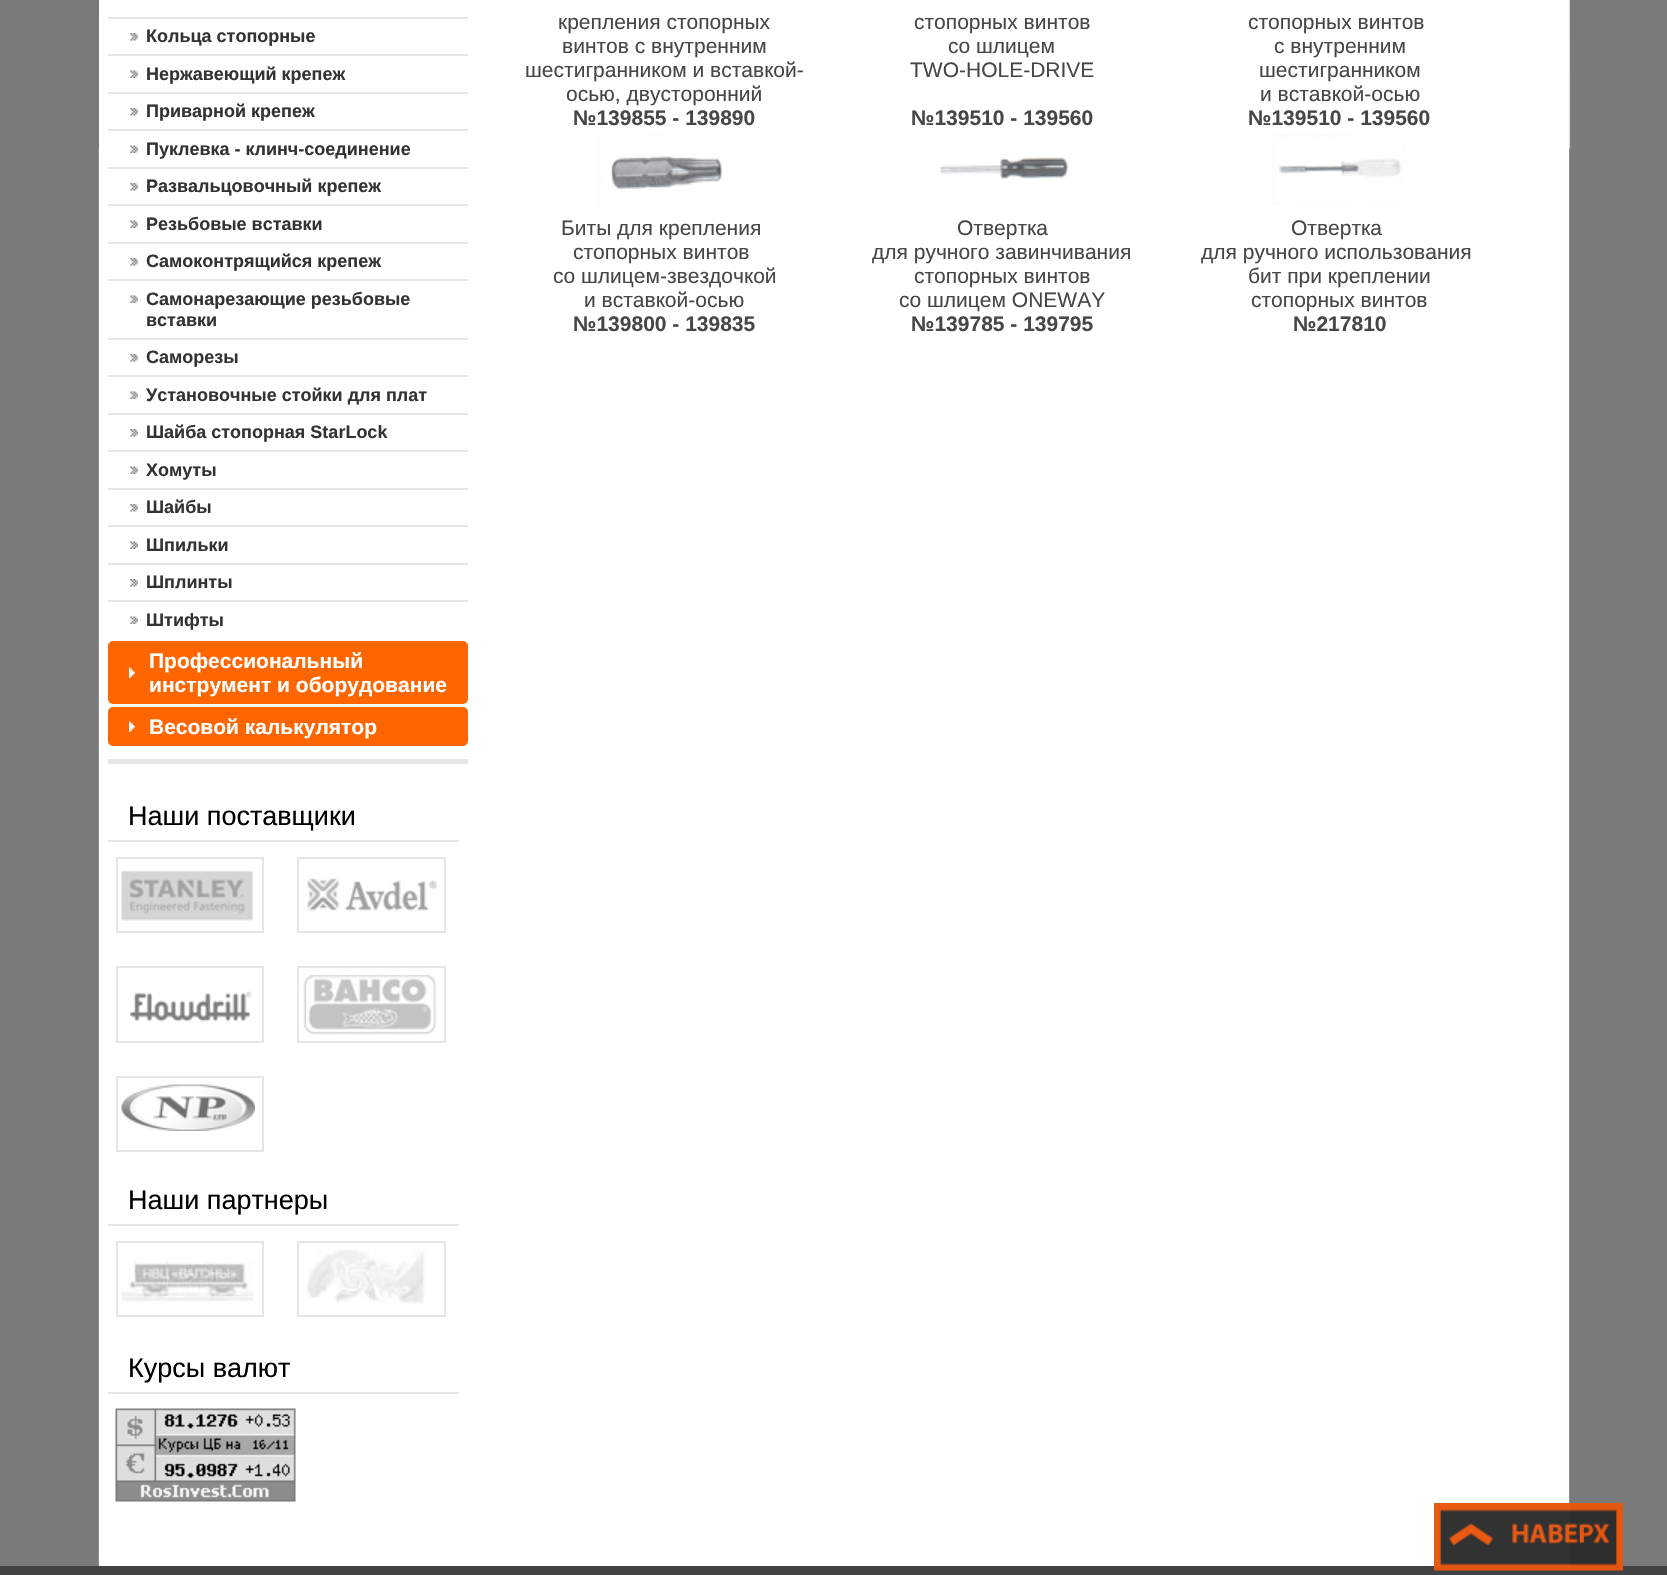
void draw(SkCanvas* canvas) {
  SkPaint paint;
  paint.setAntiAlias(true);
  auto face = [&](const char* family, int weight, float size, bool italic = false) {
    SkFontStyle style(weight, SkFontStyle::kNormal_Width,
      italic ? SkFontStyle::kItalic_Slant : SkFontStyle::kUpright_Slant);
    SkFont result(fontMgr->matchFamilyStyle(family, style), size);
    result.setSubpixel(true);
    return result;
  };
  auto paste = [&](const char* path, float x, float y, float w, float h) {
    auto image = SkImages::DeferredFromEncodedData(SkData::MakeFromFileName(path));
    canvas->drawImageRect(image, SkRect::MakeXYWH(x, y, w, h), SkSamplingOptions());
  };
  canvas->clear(0xff7a7a7a);
  paste("img/1.png", 98, 148, 1472, 1418);
  paste("img/2.png", 98, 0, 1473, 149);
  paint.setColor(0xffffffff);
  canvas->drawRoundRect(SkRect::MakeXYWH(99, -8, 1470, 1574), 8, 8, paint);
  paint.setColor(0xffe6e6e6);
  canvas->drawRect(SkRect::MakeXYWH(108, 759, 360, 5), paint);
  canvas->drawRect(SkRect::MakeXYWH(108, 17, 360, 2), paint);
  paste("img/3.png", 130, 33, 8, 8);
  canvas->drawRect(SkRect::MakeXYWH(108, 54, 360, 2), paint);
  paste("img/4.png", 130, 70, 8, 8);
  canvas->drawRect(SkRect::MakeXYWH(108, 92, 360, 2), paint);
  paste("img/3.png", 130, 108, 8, 8);
  canvas->drawRect(SkRect::MakeXYWH(108, 129, 360, 2), paint);
  paste("img/4.png", 130, 145, 8, 8);
  canvas->drawRect(SkRect::MakeXYWH(108, 167, 360, 2), paint);
  paste("img/3.png", 130, 183, 8, 8);
  canvas->drawRect(SkRect::MakeXYWH(108, 204, 360, 2), paint);
  paste("img/4.png", 130, 220, 8, 8);
  canvas->drawRect(SkRect::MakeXYWH(108, 242, 360, 2), paint);
  paste("img/3.png", 130, 258, 8, 8);
  canvas->drawRect(SkRect::MakeXYWH(108, 279, 360, 2), paint);
  paste("img/4.png", 130, 295, 8, 8);
  canvas->drawRect(SkRect::MakeXYWH(108, 338, 360, 2), paint);
  paste("img/3.png", 130, 354, 8, 8);
  canvas->drawRect(SkRect::MakeXYWH(108, 375, 360, 2), paint);
  paste("img/4.png", 130, 391, 8, 8);
  canvas->drawRect(SkRect::MakeXYWH(108, 413, 360, 2), paint);
  paste("img/3.png", 130, 429, 8, 8);
  canvas->drawRect(SkRect::MakeXYWH(108, 450, 360, 2), paint);
  paste("img/4.png", 130, 466, 8, 8);
  canvas->drawRect(SkRect::MakeXYWH(108, 488, 360, 2), paint);
  paste("img/3.png", 130, 504, 8, 8);
  canvas->drawRect(SkRect::MakeXYWH(108, 525, 360, 2), paint);
  paste("img/4.png", 130, 541, 8, 8);
  canvas->drawRect(SkRect::MakeXYWH(108, 563, 360, 2), paint);
  paste("img/3.png", 130, 579, 8, 8);
  canvas->drawRect(SkRect::MakeXYWH(108, 600, 360, 2), paint);
  paste("img/4.png", 130, 616, 8, 8);
  paint.setColor(0xffff6600);
  canvas->drawRoundRect(SkRect::MakeXYWH(108, 641, 360, 63), 5, 5, paint);
  paste("img/5.png", 129, 667, 6, 11);
  canvas->drawRoundRect(SkRect::MakeXYWH(108, 707, 360, 39), 5, 5, paint);
  paste("img/5.png", 129, 721, 6, 11);
  paint.setColor(0xffe6e6e6);
  canvas->drawRect(SkRect::MakeXYWH(108, 840, 351, 2), paint);
  paint.setStroke(true);
  paint.setStrokeWidth(2);
  canvas->drawRect(SkRect::MakeXYWH(117, 858, 146, 74), paint);
  paste("img/6.png", 121, 870, 133, 51);
  canvas->drawRect(SkRect::MakeXYWH(298, 858, 147, 74), paint);
  paste("img/7.png", 307, 878, 130, 33);
  canvas->drawRect(SkRect::MakeXYWH(117, 967, 146, 75), paint);
  paste("img/8.png", 129, 991, 123, 31);
  canvas->drawRect(SkRect::MakeXYWH(298, 967, 147, 75), paint);
  paste("img/9.png", 303, 975, 134, 60);
  canvas->drawRect(SkRect::MakeXYWH(117, 1077, 146, 74), paint);
  paste("img/10.png", 121, 1084, 134, 47);
  paint.setStroke(false);
  canvas->drawRect(SkRect::MakeXYWH(108, 1224, 351, 2), paint);
  paint.setStroke(true);
  canvas->drawRect(SkRect::MakeXYWH(117, 1242, 146, 74), paint);
  paste("img/11.png", 121, 1261, 133, 41);
  canvas->drawRect(SkRect::MakeXYWH(298, 1242, 147, 74), paint);
  paste("img/12.png", 306, 1249, 119, 55);
  paint.setStroke(false);
  canvas->drawRect(SkRect::MakeXYWH(108, 1392, 351, 2), paint);
  paste("img/13.png", 115, 1408, 181, 94);
  paste("img/14.png", 597, 134, 125, 72);
  paste("img/15.png", 939, 157, 130, 23);
  paste("img/16.png", 1272, 133, 132, 72);
  paint.setColor(0xff424242);
  canvas->drawRect(SkRect::MakeXYWH(0, 1566, 1667, 9), paint);
  paste("img/17.png", 1434, 1503, 189, 68);
  auto f0 = face("Liberation Sans", 700, 18);
  paint.setColor(0xff333333);
  {
    const struct { const char* s; float x, y; } items[] = {
      {"Кольца стопорные", 146, 42},
      {"Нержавеющий крепеж", 146, 80},
      {"Приварной крепеж", 146, 117},
      {"Пуклевка - клинч-соединение", 146, 155},
      {"Развальцовочный крепеж", 146, 192},
      {"Резьбовые вставки", 146, 230},
      {"Самоконтрящийся крепеж", 146, 267},
      {"Cамонарезающие резьбовые", 146, 305},
      {"вставки", 146, 326},
      {"Саморезы", 146, 363},
      {"Установочные стойки для плат", 146, 401},
      {"Шайба стопорная StarLock", 146, 438},
      {"Хомуты", 146, 476},
      {"Шайбы", 146, 513},
      {"Шпильки", 146, 551},
      {"Шплинты", 146, 588},
      {"Штифты", 146, 626},
    };
    for (auto [s, x, y] : items) {
      canvas->drawString(s, x, y, f0, paint);
    }
  }
  auto f1 = face("Liberation Sans", 700, 21);
  paint.setColor(0xffffffff);
  {
    const struct { const char* s; float x, y; } items[] = {
      {"Профессиональный", 149, 668},
      {"инструмент и оборудование", 149, 692},
      {"Весовой калькулятор", 149, 734},
    };
    for (auto [s, x, y] : items) {
      canvas->drawString(s, x, y, f1, paint);
    }
  }
  auto f2 = face("Liberation Sans", 400, 27);
  paint.setColor(0xff000000);
  {
    const struct { const char* s; float x, y; } items[] = {
      {"Наши поставщики", 128, 825},
      {"Наши партнеры", 128, 1209},
      {"Курсы валют", 128, 1377},
    };
    for (auto [s, x, y] : items) {
      canvas->drawString(s, x, y, f2, paint);
    }
  }
  auto f3 = face("Liberation Sans", 400, 21);
  paint.setColor(0xff474747);
  {
    const struct { const char* s; float x, y; } items[] = {
      {"крепления стопорных", 558, 29},
      {"винтов с внутренним", 562, 53},
      {"шестигранником и вставкой-", 525, 77},
      {"осью, двусторонний", 566, 101},
    };
    for (auto [s, x, y] : items) {
      canvas->drawString(s, x, y, f3, paint);
    }
  }
  canvas->drawString("№139855 - 139890", 573, 125, f1, paint);
  {
    const struct { const char* s; float x, y; } items[] = {
      {"стопорных винтов", 914, 29},
      {"со шлицем", 948, 53},
      {"TWO-HOLE-DRIVE", 910, 77},
    };
    for (auto [s, x, y] : items) {
      canvas->drawString(s, x, y, f3, paint);
    }
  }
  canvas->drawString("№139510 - 139560", 911, 125, f1, paint);
  {
    const struct { const char* s; float x, y; } items[] = {
      {"стопорных винтов", 1248, 29},
      {"с внутренним", 1274, 53},
      {"шестигранником", 1259, 77},
      {"и вставкой-осью", 1260, 101},
    };
    for (auto [s, x, y] : items) {
      canvas->drawString(s, x, y, f3, paint);
    }
  }
  canvas->drawString("№139510 - 139560", 1248, 125, f1, paint);
  {
    const struct { const char* s; float x, y; } items[] = {
      {"Биты для крепления", 561, 235},
      {"стопорных винтов", 573, 259},
      {"со шлицем-звездочкой", 553, 283},
      {"и вставкой-осью", 584, 307},
    };
    for (auto [s, x, y] : items) {
      canvas->drawString(s, x, y, f3, paint);
    }
  }
  canvas->drawString("№139800 - 139835", 573, 331, f1, paint);
  {
    const struct { const char* s; float x, y; } items[] = {
      {"Отвертка", 957, 235},
      {"для ручного завинчивания", 872, 259},
      {"стопорных винтов", 914, 283},
      {"со шлицем ONEWAY", 899, 307},
    };
    for (auto [s, x, y] : items) {
      canvas->drawString(s, x, y, f3, paint);
    }
  }
  canvas->drawString("№139785 - 139795", 911, 331, f1, paint);
  {
    const struct { const char* s; float x, y; } items[] = {
      {"Отвертка", 1291, 235},
      {"для ручного использования", 1201, 259},
      {"бит при креплении", 1248, 283},
      {"стопорных винтов", 1251, 307},
    };
    for (auto [s, x, y] : items) {
      canvas->drawString(s, x, y, f3, paint);
    }
  }
  canvas->drawString("№217810", 1293, 331, f1, paint);
}
